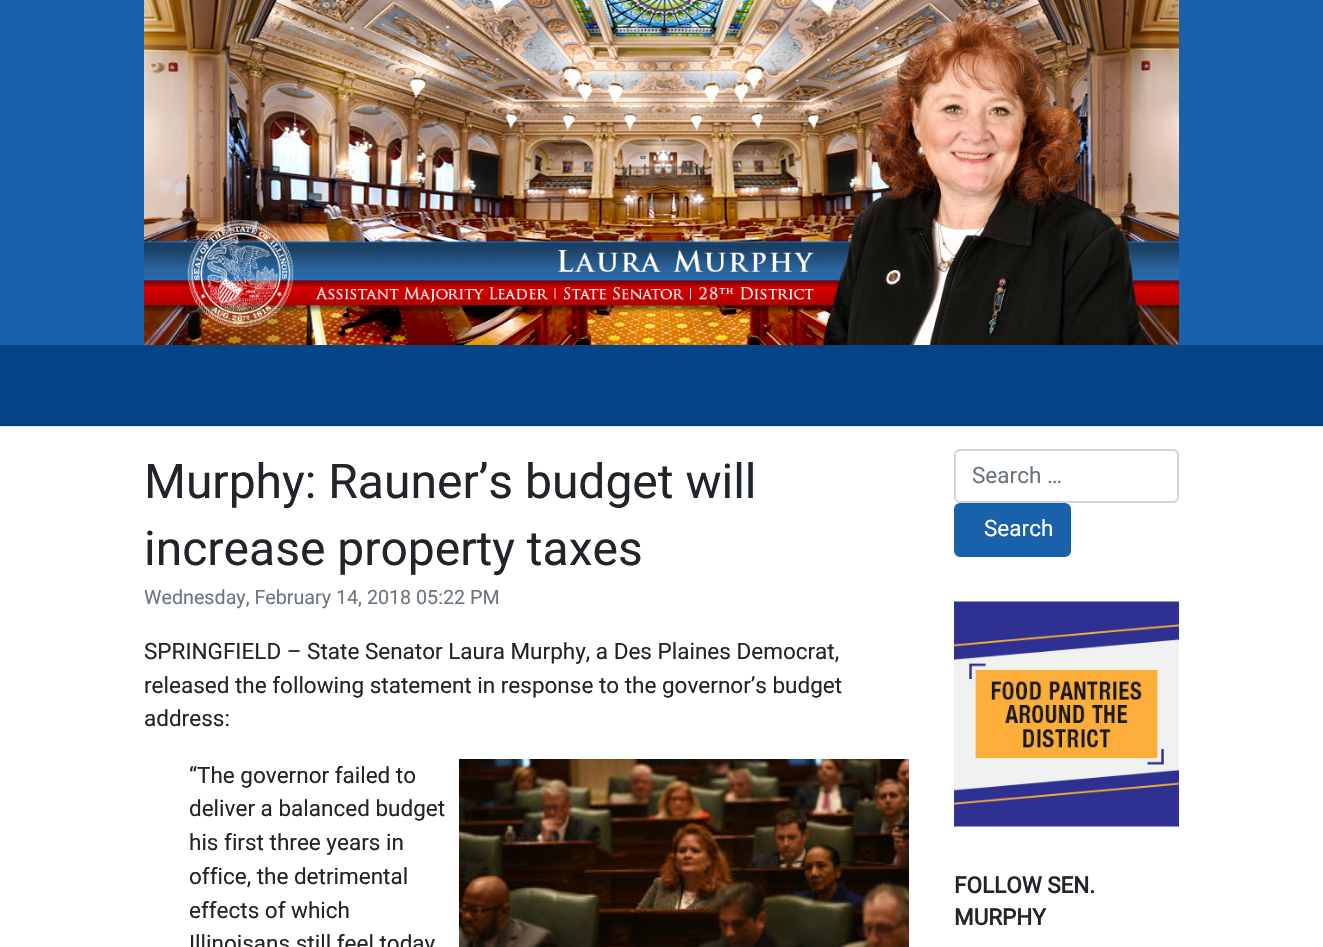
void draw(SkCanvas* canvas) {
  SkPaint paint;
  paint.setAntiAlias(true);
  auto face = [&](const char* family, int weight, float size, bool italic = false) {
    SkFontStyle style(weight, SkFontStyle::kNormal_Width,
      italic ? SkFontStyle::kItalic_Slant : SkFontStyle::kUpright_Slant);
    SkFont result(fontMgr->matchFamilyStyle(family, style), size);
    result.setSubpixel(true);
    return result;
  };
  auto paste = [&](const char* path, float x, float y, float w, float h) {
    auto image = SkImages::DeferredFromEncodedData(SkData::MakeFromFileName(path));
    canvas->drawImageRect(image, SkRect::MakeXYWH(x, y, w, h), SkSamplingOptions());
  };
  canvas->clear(0xffffffff);
  paint.setColor(0xffe7e7e8);
  canvas->drawRect(SkRect::MakeXYWH(0, 426, 1323, 1), paint);
  paint.setColor(0xff1a61ab);
  canvas->drawRect(SkRect::MakeXYWH(0, 0, 1323, 345), paint);
  paste("img/1.png", 144, 0, 1035, 345);
  {
    const struct { float x, y, w, h; SkColor color; } items[] = {
      {0, 347, 1323, 78, 0xff034588},
      {0, 425, 1323, 1, 0xff09447f},
      {0, 345, 1323, 2, 0xff09447f},
    };
    for (auto [x, y, w, h, color] : items) {
      paint.setColor(color);
      canvas->drawRect(SkRect::MakeXYWH(x, y, w, h), paint);
    }
  }
  paste("img/2.png", 459, 759, 450, 188);
  paint.setStroke(true);
  paint.setStrokeWidth(2);
  paint.setColor(0xffced4da);
  canvas->drawRoundRect(SkRect::MakeXYWH(955, 450, 223, 52), 5, 5, paint);
  paint.setStroke(false);
  paint.setColor(0xff1a61ab);
  canvas->drawRoundRect(SkRect::MakeXYWH(955, 504, 115, 52), 5, 5, paint);
  paint.setStroke(true);
  canvas->drawRoundRect(SkRect::MakeXYWH(955, 504, 115, 52), 5, 5, paint);
  paste("img/3.png", 954, 601, 225, 226);
  auto f0 = face("Roboto", 400, 48);
  paint.setStroke(false);
  paint.setColor(0xff212529);
  canvas->drawString("Murphy: Rauner’s budget will", 144, 498, f0, paint);
  canvas->drawString("increase property taxes", 144, 565, f0, paint);
  auto f1 = face("Roboto", 400, 19.7f);
  paint.setColor(0xff6c757d);
  canvas->drawString("Wednesday, February 14, 2018 05:22 PM", 144, 604, f1, paint);
  auto f2 = face("Roboto", 400, 22.5f);
  paint.setColor(0xff212529);
  {
    const struct { const char* s; float x, y; } items[] = {
      {"SPRINGFIELD – State Senator Laura Murphy, a Des Plaines Democrat,", 144, 659},
      {"released the following statement in response to the governor’s budget", 144, 693},
      {"address:", 144, 726},
      {"“The governor failed to", 189, 783},
      {"deliver a balanced budget", 189, 816},
      {"his first three years in", 189, 850},
      {"office, the detrimental", 189, 884},
      {"effects of which", 189, 918},
      {"Illinoisans still feel today", 189, 951},
    };
    for (auto [s, x, y] : items) {
      canvas->drawString(s, x, y, f2, paint);
    }
  }
  paint.setColor(0xff6c757d);
  canvas->drawString("Search …", 972, 483, f2, paint);
  paint.setColor(0xffffffff);
  canvas->drawString("Search", 984, 536, f2, paint);
  auto f3 = face("Roboto", 700, 22.5f);
  paint.setColor(0xff212529);
  canvas->drawString("FOLLOW SEN.", 954, 893, f3, paint);
  canvas->drawString("MURPHY", 954, 925, f3, paint);
}
